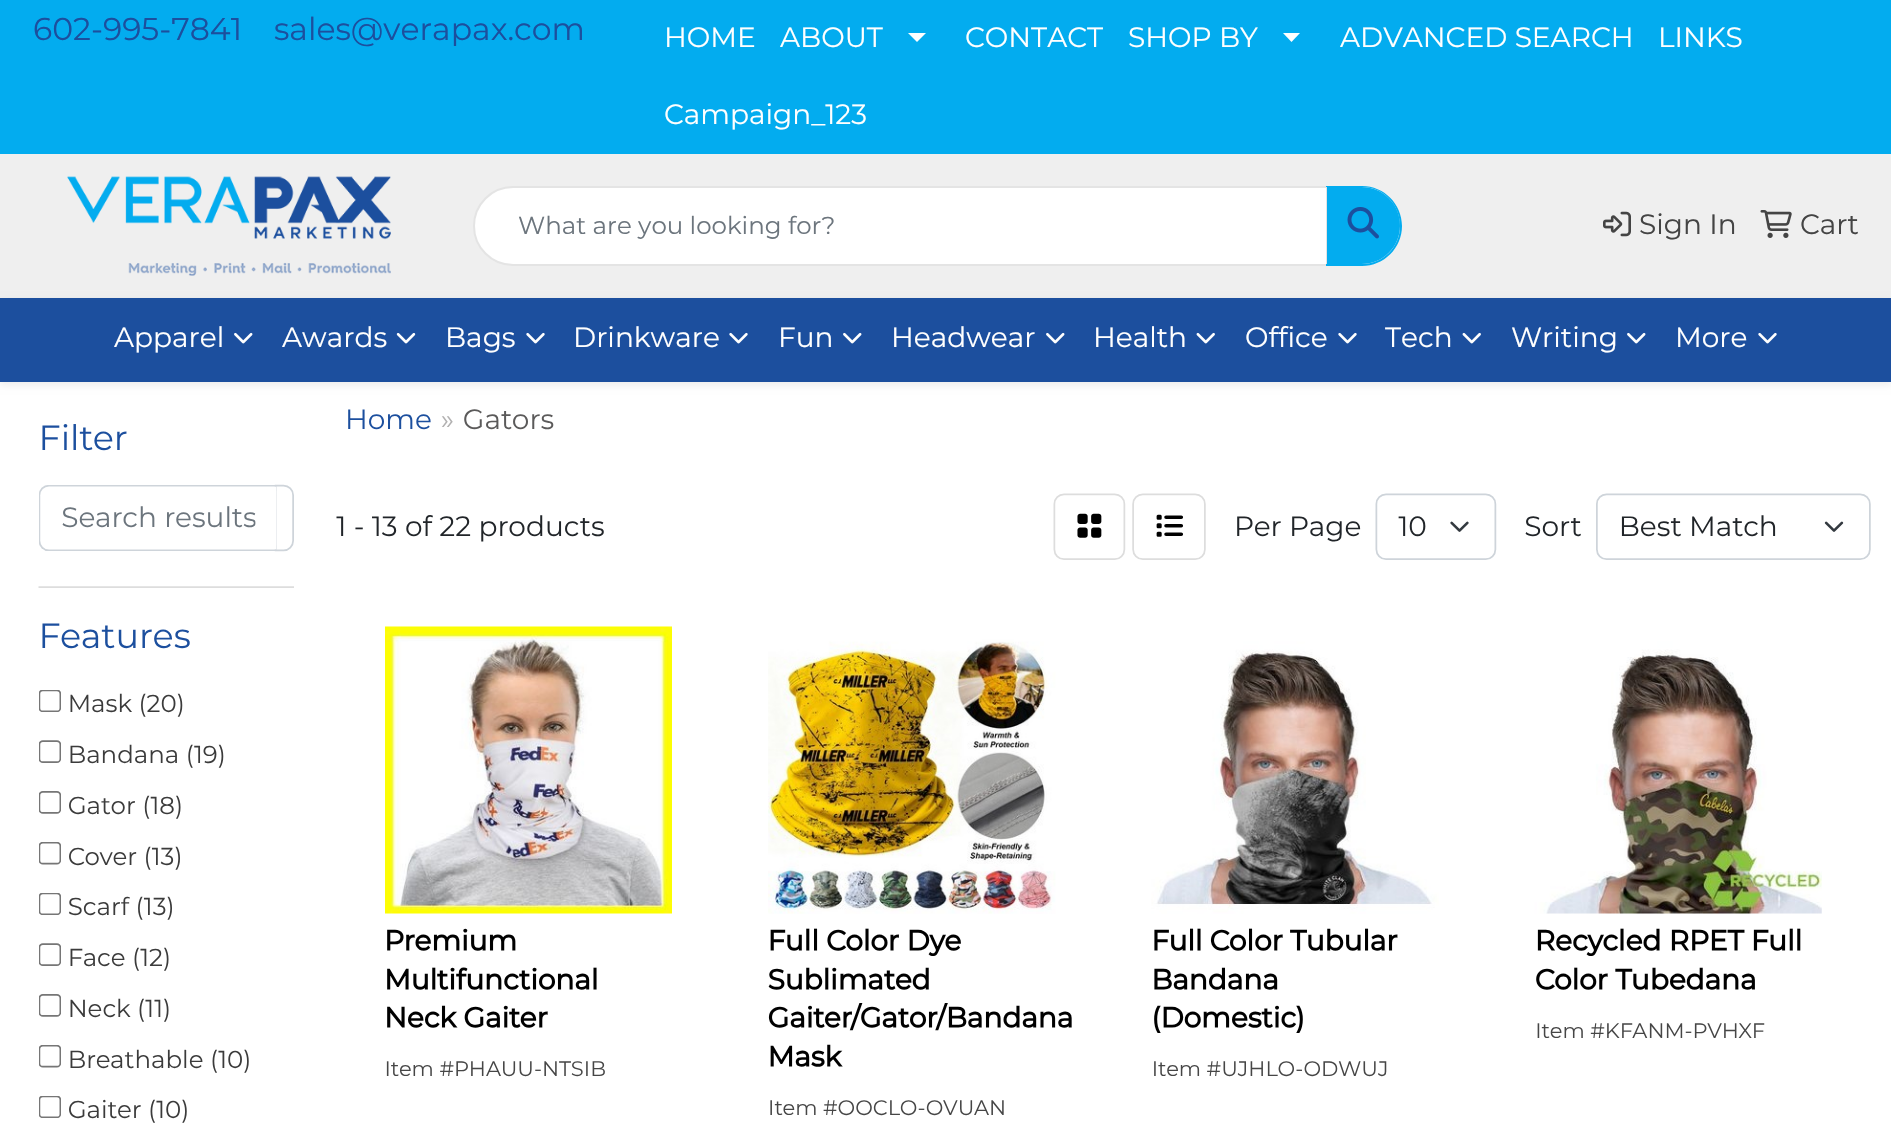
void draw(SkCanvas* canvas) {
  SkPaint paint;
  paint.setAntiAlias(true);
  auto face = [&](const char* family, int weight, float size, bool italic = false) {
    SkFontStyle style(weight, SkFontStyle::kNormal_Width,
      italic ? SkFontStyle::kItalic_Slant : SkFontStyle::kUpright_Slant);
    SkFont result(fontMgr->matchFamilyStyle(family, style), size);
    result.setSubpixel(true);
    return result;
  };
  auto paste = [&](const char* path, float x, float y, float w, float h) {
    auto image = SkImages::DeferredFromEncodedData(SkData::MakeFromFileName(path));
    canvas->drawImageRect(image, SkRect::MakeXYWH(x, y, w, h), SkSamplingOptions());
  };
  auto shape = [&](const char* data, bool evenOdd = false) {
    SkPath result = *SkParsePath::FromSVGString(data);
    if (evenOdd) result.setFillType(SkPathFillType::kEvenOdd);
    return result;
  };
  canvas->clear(0xffffffff);
  paint.setColor(0xffefefef);
  canvas->drawRect(SkRect::MakeXYWH(0, 154, 1891, 144), paint);
  paint.setColor(0xff03acef);
  canvas->drawRect(SkRect::MakeXYWH(0, 0, 1891, 154), paint);
  paint.setColor(0xffffffff);
  canvas->drawPath(shape("M908 33H926L917 42Z"), paint);
  canvas->drawPath(shape("M1283 33H1300L1291.5 42Z"), paint);
  paste("img/1.png", 67, 176, 324, 100);
  canvas->drawPath(shape("M513 187H1327V265H513C491.5 265 474 247.5 474 226C474 204.5 491.5 187 513 187Z"), paint);
  paint.setStroke(true);
  paint.setStrokeWidth(2);
  paint.setColor(0xffe4e4e4);
  canvas->drawPath(shape("M513 187H1327V265H513C491.5 265 474 247.5 474 226C474 204.5 491.5 187 513 187Z"), paint);
  paint.setStroke(false);
  paint.setColor(0xff03acef);
  canvas->drawPath(shape("M1327 187H1361.5C1383 187 1400 204 1400 225.5C1400 247 1383 264 1361.5 264H1327Z"), paint);
  canvas->drawPath(shape("M1326 186H1362C1384 186 1402 204 1402 226C1402 248 1384 266 1362 266H1326ZM1326 187H1362C1383 187 1400 204 1400 226C1400 247 1383 264 1362 264H1326Z", true), paint);
  paste("img/2.png", 1347, 207, 32, 32);
  paste("img/3.png", 1603, 211, 28, 26);
  paste("img/4.png", 1760, 210, 32, 28);
  paint.setColor(0x12000000);
  paint.setMaskFilter(SkMaskFilter::MakeBlur(kNormal_SkBlurStyle, 3.5f));
  canvas->drawRect(SkRect::MakeXYWH(0, 301, 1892, 84), paint);
  paint.setMaskFilter(nullptr);
  paint.setColor(0xff1c4f9e);
  canvas->drawRect(SkRect::MakeXYWH(0, 298, 1891, 84), paint);
  paste("img/5.png", 234, 332, 19, 12);
  paste("img/6.png", 396, 333, 20, 11);
  paste("img/7.png", 526, 332, 19, 12);
  paste("img/7.png", 729, 332, 19, 12);
  paste("img/5.png", 843, 332, 19, 12);
  paste("img/5.png", 1046, 332, 19, 12);
  paste("img/8.png", 1196, 332, 19, 12);
  paste("img/7.png", 1338, 332, 19, 12);
  paste("img/8.png", 1462, 332, 19, 12);
  paste("img/5.png", 1627, 332, 19, 12);
  paste("img/7.png", 1758, 332, 19, 12);
  paste("img/9.png", 38, 409, 1833, 714);
  auto f0 = face("Montserrat", 100, 31.5f);
  canvas->drawString("602-995-7841", 33, 40, f0, paint);
  canvas->drawString("sales@verapax.com", 274, 40, f0, paint);
  auto f1 = face("Montserrat", 100, 28);
  paint.setColor(0xffffffff);
  {
    const struct { const char* s; float x, y; } items[] = {
      {"HOME", 664, 47},
      {"ABOUT", 780, 47},
      {"CONTACT", 965, 47},
      {"SHOP BY", 1128, 47},
      {"ADVANCED SEARCH", 1340, 47},
      {"LINKS", 1658, 47},
      {"Campaign_123", 664, 124},
    };
    for (auto [s, x, y] : items) {
      canvas->drawString(s, x, y, f1, paint);
    }
  }
  auto f2 = face("Montserrat", 100, 24.5f);
  paint.setColor(0xff6c757d);
  canvas->drawString("What are you looking for?", 518, 234, f2, paint);
  paint.setColor(0xff444444);
  canvas->drawString("Sign In", 1639, 234, f1, paint);
  canvas->drawString("Cart", 1800, 234, f1, paint);
  paint.setColor(0xffffffff);
  {
    const struct { const char* s; float x, y; } items[] = {
      {"Apparel", 114, 347},
      {"Awards", 282, 347},
      {"Bags", 445, 347},
      {"Drinkware", 573, 347},
      {"Fun", 778, 347},
      {"Headwear", 891, 347},
      {"Health", 1093, 347},
      {"Office", 1245, 347},
      {"Tech", 1385, 347},
      {"Writing", 1511, 347},
      {"More", 1675, 347},
    };
    for (auto [s, x, y] : items) {
      canvas->drawString(s, x, y, f1, paint);
    }
  }
}
